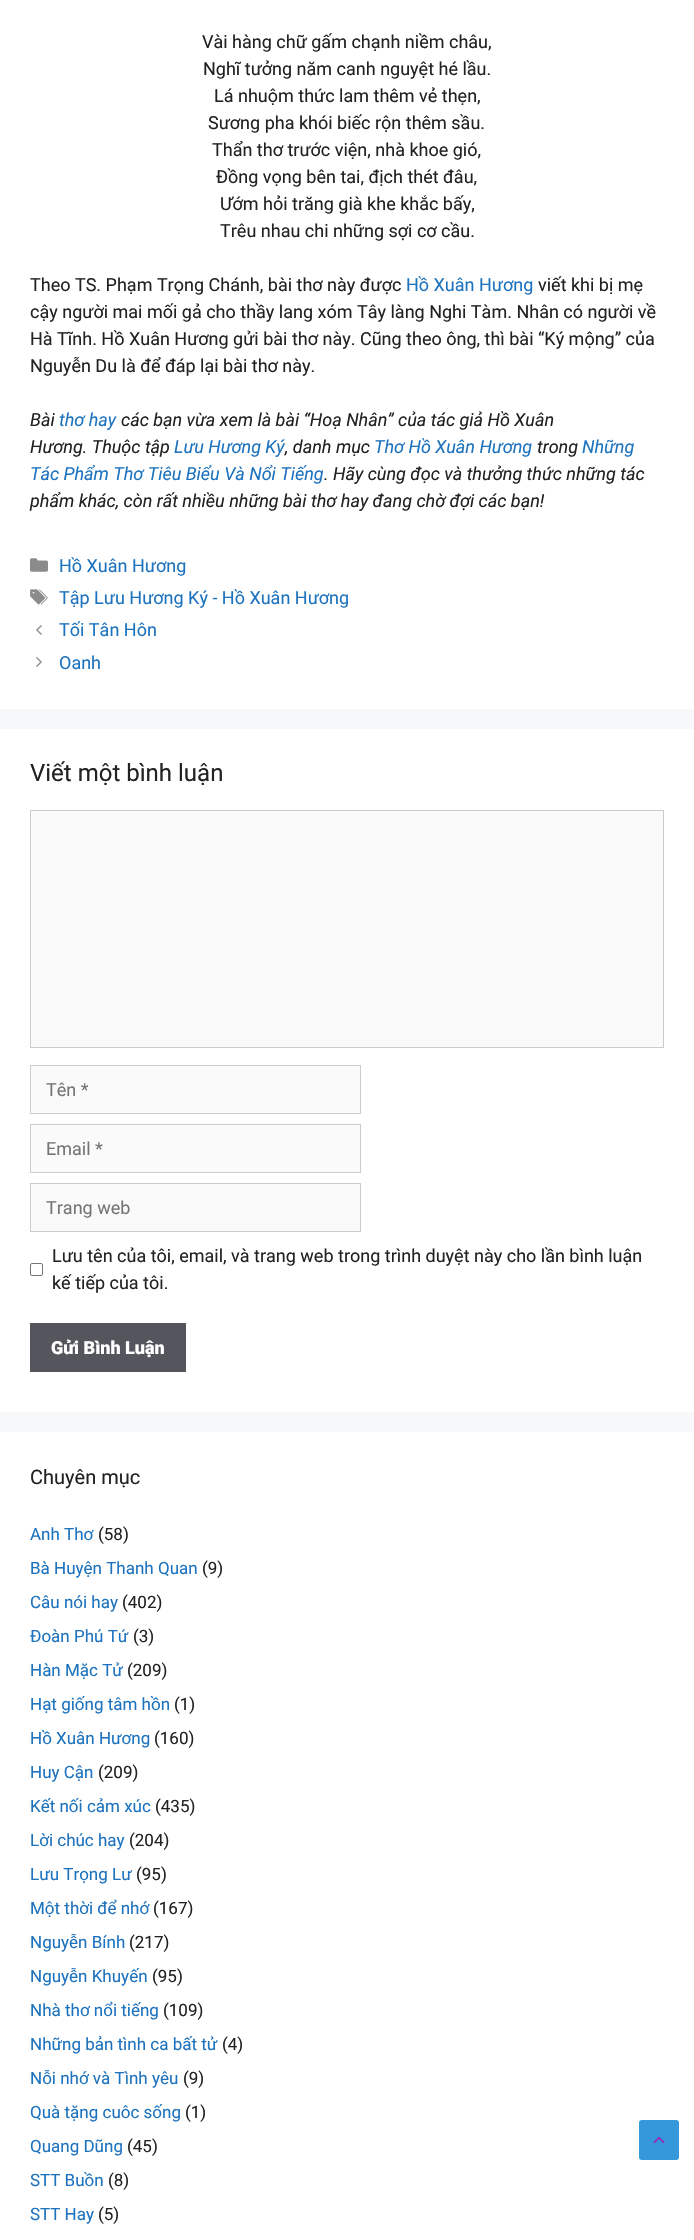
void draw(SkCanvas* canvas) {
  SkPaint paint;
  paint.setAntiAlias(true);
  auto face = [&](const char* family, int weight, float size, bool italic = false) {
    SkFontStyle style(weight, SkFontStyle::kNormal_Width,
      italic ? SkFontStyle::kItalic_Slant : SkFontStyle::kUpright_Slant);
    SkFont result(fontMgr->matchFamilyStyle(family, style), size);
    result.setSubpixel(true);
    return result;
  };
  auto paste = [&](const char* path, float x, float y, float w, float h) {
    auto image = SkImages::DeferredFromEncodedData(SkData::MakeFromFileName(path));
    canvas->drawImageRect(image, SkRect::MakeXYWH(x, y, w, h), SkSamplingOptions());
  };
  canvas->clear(0xfff7f8f9);
  paint.setColor(0xffffffff);
  canvas->drawRect(SkRect::MakeXYWH(0, 0, 694, 709), paint);
  paste("img/1.png", 30, 558, 18, 14);
  paste("img/2.png", 30, 589, 18, 16);
  paste("img/3.png", 36, 625, 6, 10);
  paste("img/4.png", 36, 657, 6, 10);
  canvas->drawRect(SkRect::MakeXYWH(0, 729, 694, 683), paint);
  paint.setColor(0xfffafafa);
  canvas->drawRect(SkRect::MakeXYWH(30.5f, 810.5f, 633, 237), paint);
  paint.setStroke(true);
  paint.setStrokeWidth(1);
  paint.setColor(0xffcccccc);
  canvas->drawRect(SkRect::MakeXYWH(30.5f, 810.5f, 633, 237), paint);
  paint.setStroke(false);
  paint.setColor(0xfffafafa);
  canvas->drawRect(SkRect::MakeXYWH(30.5f, 1065.5f, 330, 48), paint);
  paint.setStroke(true);
  paint.setColor(0xffcccccc);
  canvas->drawRect(SkRect::MakeXYWH(30.5f, 1065.5f, 330, 48), paint);
  paint.setStroke(false);
  paint.setColor(0xfffafafa);
  canvas->drawRect(SkRect::MakeXYWH(30.5f, 1124.5f, 330, 48), paint);
  paint.setStroke(true);
  paint.setColor(0xffcccccc);
  canvas->drawRect(SkRect::MakeXYWH(30.5f, 1124.5f, 330, 48), paint);
  paint.setStroke(false);
  paint.setColor(0xfffafafa);
  canvas->drawRect(SkRect::MakeXYWH(30.5f, 1183.5f, 330, 48), paint);
  paint.setStroke(true);
  paint.setColor(0xffcccccc);
  canvas->drawRect(SkRect::MakeXYWH(30.5f, 1183.5f, 330, 48), paint);
  paint.setColor(0xff767676);
  canvas->drawRoundRect(SkRect::MakeXYWH(30.5f, 1263.5f, 12, 12), 1.5f, 1.5f, paint);
  paint.setStroke(false);
  paint.setColor(0xff55555e);
  canvas->drawRect(SkRect::MakeXYWH(30, 1323, 156, 49), paint);
  paint.setColor(0xffffffff);
  canvas->drawRect(SkRect::MakeXYWH(0, 1432, 694, 808), paint);
  paint.setColor(0xff3498db);
  canvas->drawRoundRect(SkRect::MakeXYWH(639, 2120, 40, 40), 3, 3, paint);
  paste("img/5.png", 653, 2136, 12, 8);
  auto f0 = face("Roboto", 400, 18);
  paint.setColor(0xff222222);
  {
    const struct { const char* s; float x, y; } items[] = {
      {"Vài hàng chữ gấm chạnh niềm châu,", 202, 48},
      {"Nghĩ tưởng năm canh nguyệt hé lầu.", 203, 75},
      {"Lá nhuộm thức lam thêm vẻ thẹn,", 214, 102},
      {"Sương pha khói biếc rộn thêm sầu.", 208, 129},
      {"Thẩn thơ trước viện, nhà khoe gió,", 212, 156},
      {"Đồng vọng bên tai, địch thét đâu,", 216, 183},
      {"Ướm hỏi trăng già khe khắc bấy,", 220, 210},
      {"Trêu nhau chi những sợi cơ cầu.", 220, 237},
      {"Theo TS. Phạm Trọng Chánh, bài thơ này được", 30, 291},
    };
    for (auto [s, x, y] : items) {
      canvas->drawString(s, x, y, f0, paint);
    }
  }
  paint.setColor(0xff1e73be);
  canvas->drawString("Hồ Xuân Hương", 406, 291, f0, paint);
  paint.setColor(0xff222222);
  {
    const struct { const char* s; float x, y; } items[] = {
      {"viết khi bị mẹ", 538, 291},
      {"cậy người mai mối gả cho thầy lang xóm Tây làng Nghi Tàm. Nhân có người về", 30, 318},
      {"Hà Tĩnh. Hồ Xuân Hương gửi bài thơ này. Cũng theo ông, thì bài “Ký mộng” của", 30, 345},
      {"Nguyễn Du là để đáp lại bài thơ này.", 30, 372},
    };
    for (auto [s, x, y] : items) {
      canvas->drawString(s, x, y, f0, paint);
    }
  }
  auto f1 = face("Roboto", 400, 18, true);
  canvas->drawString("Bài", 30, 426, f1, paint);
  paint.setColor(0xff1e73be);
  canvas->drawString("thơ hay", 59, 426, f1, paint);
  paint.setColor(0xff222222);
  canvas->drawString("các bạn vừa xem là bài “Hoạ Nhân” của tác giả Hồ Xuân", 121, 426, f1, paint);
  canvas->drawString("Hương. Thuộc tập", 30, 453, f1, paint);
  paint.setColor(0xff1e73be);
  canvas->drawString("Lưu Hương Ký", 174, 453, f1, paint);
  paint.setColor(0xff222222);
  canvas->drawString(", danh mục", 285, 453, f1, paint);
  paint.setColor(0xff1e73be);
  canvas->drawString("Thơ Hồ Xuân Hương", 374, 453, f1, paint);
  paint.setColor(0xff222222);
  canvas->drawString("trong", 537, 453, f1, paint);
  paint.setColor(0xff1e73be);
  canvas->drawString("Những", 582, 453, f1, paint);
  canvas->drawString("Tác Phẩm Thơ Tiêu Biểu Và Nổi Tiếng", 30, 480, f1, paint);
  paint.setColor(0xff222222);
  canvas->drawString(". Hãy cùng đọc và thưởng thức những tác", 324, 480, f1, paint);
  canvas->drawString("phẩm khác, còn rất nhiều những bài thơ hay đang chờ đợi các bạn!", 30, 507, f1, paint);
  paint.setColor(0xff1e73be);
  {
    const struct { const char* s; float x, y; } items[] = {
      {"Hồ Xuân Hương", 59, 572},
      {"Tập Lưu Hương Ký - Hồ Xuân Hương", 59, 604},
      {"Tối Tân Hôn", 59, 636},
      {"Oanh", 59, 669},
    };
    for (auto [s, x, y] : items) {
      canvas->drawString(s, x, y, f0, paint);
    }
  }
  auto f2 = face("Roboto", 400, 24);
  paint.setColor(0xff222222);
  canvas->drawString("Viết một bình luận", 30, 781, f2, paint);
  paint.setColor(0xff757575);
  {
    const struct { const char* s; float x, y; } items[] = {
      {"Tên *", 46, 1096},
      {"Email *", 46, 1155},
      {"Trang web", 46, 1214},
    };
    for (auto [s, x, y] : items) {
      canvas->drawString(s, x, y, f0, paint);
    }
  }
  paint.setColor(0xff222222);
  canvas->drawString("Lưu tên của tôi, email, và trang web trong trình duyệt này cho lần bình luận", 52, 1262, f0, paint);
  canvas->drawString("kế tiếp của tôi.", 52, 1289, f0, paint);
  auto f3 = face("Roboto", 900, 18);
  paint.setColor(0xffffffff);
  canvas->drawString("Gửi Bình Luận", 51, 1354, f3, paint);
  auto f4 = face("Roboto", 400, 20);
  paint.setColor(0xff222222);
  canvas->drawString("Chuyên mục", 30, 1484, f4, paint);
  auto f5 = face("Roboto", 400, 17);
  paint.setColor(0xff1e73be);
  canvas->drawString("Anh Thơ", 30, 1540, f5, paint);
  paint.setColor(0xff222222);
  canvas->drawString("(58)", 98, 1540, f5, paint);
  paint.setColor(0xff1e73be);
  canvas->drawString("Bà Huyện Thanh Quan", 30, 1574, f5, paint);
  paint.setColor(0xff222222);
  canvas->drawString("(9)", 202, 1574, f5, paint);
  paint.setColor(0xff1e73be);
  canvas->drawString("Câu nói hay", 30, 1608, f5, paint);
  paint.setColor(0xff222222);
  canvas->drawString("(402)", 122, 1608, f5, paint);
  paint.setColor(0xff1e73be);
  canvas->drawString("Đoàn Phú Tứ", 30, 1642, f5, paint);
  paint.setColor(0xff222222);
  canvas->drawString("(3)", 133, 1642, f5, paint);
  paint.setColor(0xff1e73be);
  canvas->drawString("Hàn Mặc Tử", 30, 1676, f5, paint);
  paint.setColor(0xff222222);
  canvas->drawString("(209)", 127, 1676, f5, paint);
  paint.setColor(0xff1e73be);
  canvas->drawString("Hạt giống tâm hồn", 30, 1710, f5, paint);
  paint.setColor(0xff222222);
  canvas->drawString("(1)", 174, 1710, f5, paint);
  paint.setColor(0xff1e73be);
  canvas->drawString("Hồ Xuân Hương", 30, 1744, f5, paint);
  paint.setColor(0xff222222);
  canvas->drawString("(160)", 154, 1744, f5, paint);
  paint.setColor(0xff1e73be);
  canvas->drawString("Huy Cận", 30, 1778, f5, paint);
  paint.setColor(0xff222222);
  canvas->drawString("(209)", 98, 1778, f5, paint);
  paint.setColor(0xff1e73be);
  canvas->drawString("Kết nối cảm xúc", 30, 1812, f5, paint);
  paint.setColor(0xff222222);
  canvas->drawString("(435)", 155, 1812, f5, paint);
  paint.setColor(0xff1e73be);
  canvas->drawString("Lời chúc hay", 30, 1846, f5, paint);
  paint.setColor(0xff222222);
  canvas->drawString("(204)", 129, 1846, f5, paint);
  paint.setColor(0xff1e73be);
  canvas->drawString("Lưu Trọng Lư", 30, 1880, f5, paint);
  paint.setColor(0xff222222);
  canvas->drawString("(95)", 136, 1880, f5, paint);
  paint.setColor(0xff1e73be);
  canvas->drawString("Một thời để nhớ", 30, 1914, f5, paint);
  paint.setColor(0xff222222);
  canvas->drawString("(167)", 153, 1914, f5, paint);
  paint.setColor(0xff1e73be);
  canvas->drawString("Nguyễn Bính", 30, 1948, f5, paint);
  paint.setColor(0xff222222);
  canvas->drawString("(217)", 129, 1948, f5, paint);
  paint.setColor(0xff1e73be);
  canvas->drawString("Nguyễn Khuyến", 30, 1982, f5, paint);
  paint.setColor(0xff222222);
  canvas->drawString("(95)", 152, 1982, f5, paint);
  paint.setColor(0xff1e73be);
  canvas->drawString("Nhà thơ nổi tiếng", 30, 2016, f5, paint);
  paint.setColor(0xff222222);
  canvas->drawString("(109)", 163, 2016, f5, paint);
  paint.setColor(0xff1e73be);
  canvas->drawString("Những bản tình ca bất tử", 30, 2050, f5, paint);
  paint.setColor(0xff222222);
  canvas->drawString("(4)", 222, 2050, f5, paint);
  paint.setColor(0xff1e73be);
  canvas->drawString("Nỗi nhớ và Tình yêu", 30, 2084, f5, paint);
  paint.setColor(0xff222222);
  canvas->drawString("(9)", 183, 2084, f5, paint);
  paint.setColor(0xff1e73be);
  canvas->drawString("Quà tặng cuôc sống", 30, 2118, f5, paint);
  paint.setColor(0xff222222);
  canvas->drawString("(1)", 185, 2118, f5, paint);
  paint.setColor(0xff1e73be);
  canvas->drawString("Quang Dũng", 30, 2152, f5, paint);
  paint.setColor(0xff222222);
  canvas->drawString("(45)", 127, 2152, f5, paint);
  paint.setColor(0xff1e73be);
  canvas->drawString("STT Buồn", 30, 2186, f5, paint);
  paint.setColor(0xff222222);
  canvas->drawString("(8)", 108, 2186, f5, paint);
  paint.setColor(0xff1e73be);
  canvas->drawString("STT Hay", 30, 2220, f5, paint);
  paint.setColor(0xff222222);
  canvas->drawString("(5)", 98, 2220, f5, paint);
}
